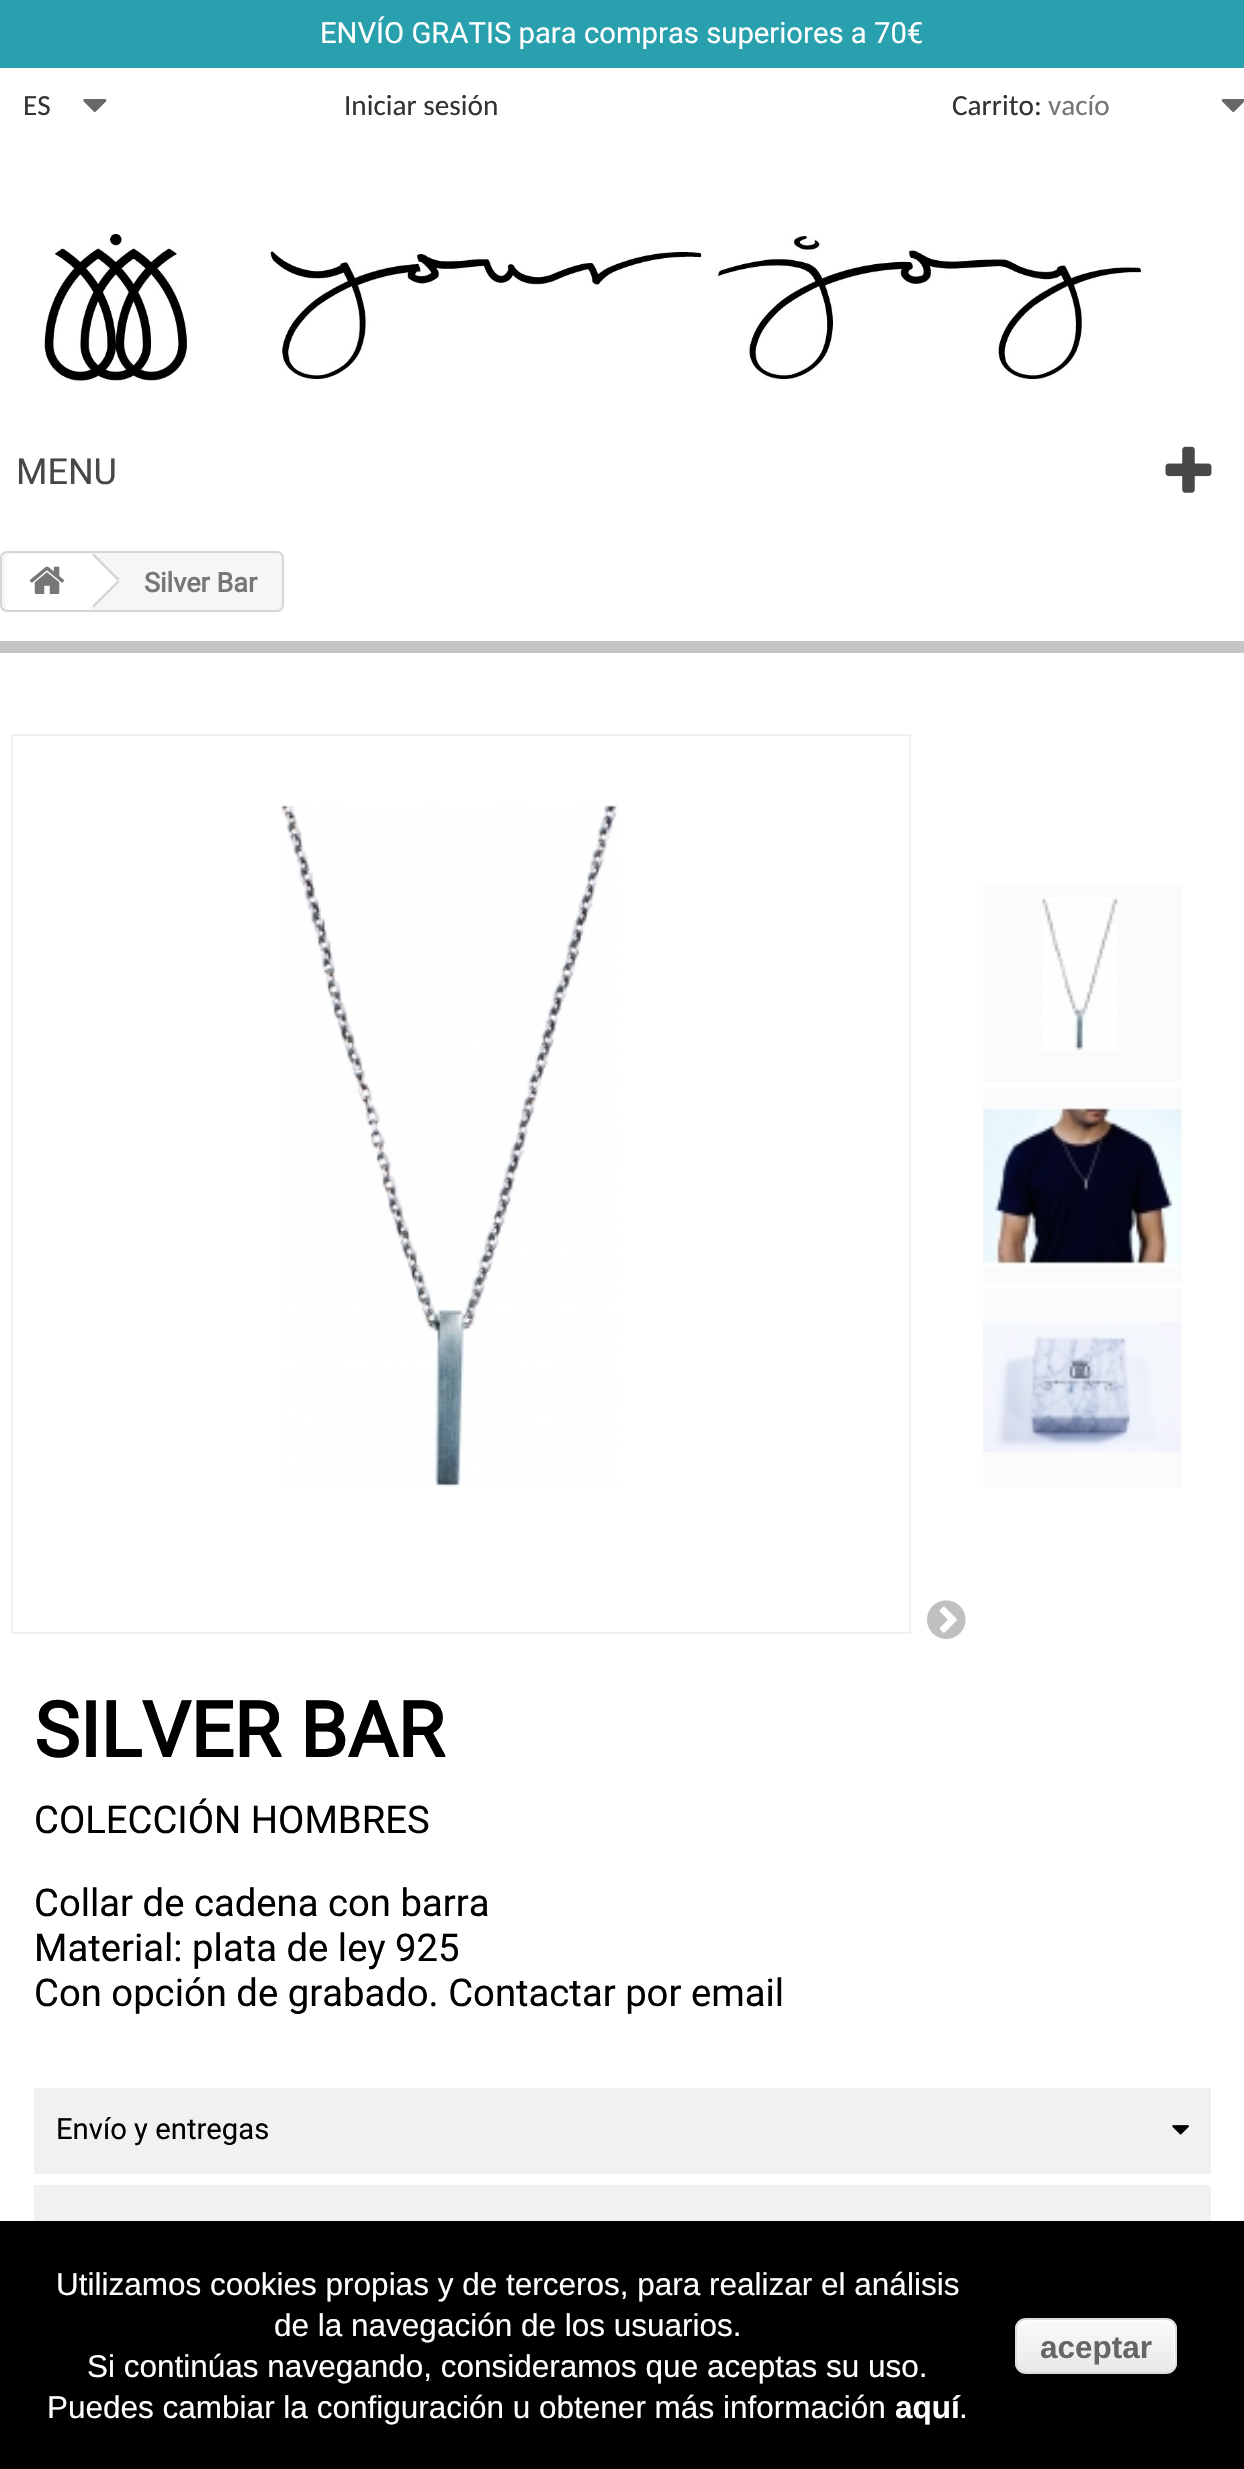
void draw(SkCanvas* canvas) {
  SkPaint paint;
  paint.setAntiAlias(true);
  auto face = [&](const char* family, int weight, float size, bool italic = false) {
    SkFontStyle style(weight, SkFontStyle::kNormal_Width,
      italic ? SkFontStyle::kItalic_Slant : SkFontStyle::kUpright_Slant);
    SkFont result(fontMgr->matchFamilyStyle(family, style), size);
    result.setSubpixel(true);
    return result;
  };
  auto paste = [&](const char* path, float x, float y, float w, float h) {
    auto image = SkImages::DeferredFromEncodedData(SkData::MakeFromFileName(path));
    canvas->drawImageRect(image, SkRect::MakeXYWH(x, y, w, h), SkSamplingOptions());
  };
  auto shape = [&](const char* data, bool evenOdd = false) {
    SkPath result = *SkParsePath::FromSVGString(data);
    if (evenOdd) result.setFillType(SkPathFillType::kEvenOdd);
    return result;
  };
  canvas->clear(0xffffffff);
  paint.setColor(0xff29a0ad);
  canvas->drawRect(SkRect::MakeXYWH(0, 0, 1244, 68), paint);
  paste("img/1.png", 1221, 99, 23, 13);
  paste("img/2.png", 44, 231, 1100, 150);
  paste("img/3.png", 1165, 446, 47, 47);
  paste("img/4.png", 83, 99, 24, 13);
  paint.setColor(0xfff6f6f6);
  canvas->drawRoundRect(SkRect::MakeXYWH(1, 552, 282, 59), 6, 6, paint);
  paint.setStroke(true);
  paint.setStrokeWidth(2);
  paint.setColor(0xffd6d4d4);
  canvas->drawRoundRect(SkRect::MakeXYWH(1, 552, 282, 59), 6, 6, paint);
  paint.setStroke(false);
  paint.setColor(0xffffffff);
  canvas->drawPath(shape("M12 554H90V610H12C8 610 5 607 5 603V561C5 557 8 554 12 554Z"), paint);
  paste("img/5.png", 29, 566, 36, 28);
  canvas->drawPath(shape("M95 555L94 554C87 554 88 556 82 562L71 573C62 582 65 582 74 591C77 594 88 607 92 607H94L118 584C119 582 119 579 118 577Z"), paint);
  paint.setColor(0xffd6d4d4);
  canvas->drawPath(shape("M94 553.5L119.5 579L117.5 580.5L92 555Z"), paint);
  canvas->drawPath(shape("M117.5 580.5L119.5 582L94 607.5L92 606Z"), paint);
  paint.setColor(0xffc4c4c4);
  canvas->drawRect(SkRect::MakeXYWH(0, 641, 1244, 12), paint);
  paint.setStroke(true);
  paint.setColor(0xfff0f0f0);
  canvas->drawRect(SkRect::MakeXYWH(12, 735, 898, 898), paint);
  paste("img/6.png", 281, 805, 337, 682);
  paint.setStroke(false);
  paint.setColor(0xfffbfbfb);
  canvas->drawRect(SkRect::MakeXYWH(983, 884, 199, 199), paint);
  paste("img/7.png", 1042, 898, 76, 153);
  canvas->drawRect(SkRect::MakeXYWH(983, 1087, 199, 198), paint);
  paste("img/8.png", 983, 1107, 199, 159);
  canvas->drawRect(SkRect::MakeXYWH(983, 1289, 199, 199), paint);
  paste("img/9.png", 983, 1322, 198, 131);
  paste("img/10.png", 927, 1600, 39, 39);
  paint.setColor(0xfff1f1f1);
  canvas->drawRect(SkRect::MakeXYWH(34, 2088, 1177, 86), paint);
  paste("img/11.png", 1172, 2125, 17, 10);
  canvas->drawRect(SkRect::MakeXYWH(34, 2185, 1177, 36), paint);
  paint.setColor(0xff000000);
  canvas->drawRect(SkRect::MakeXYWH(0, 2221, 1244, 248), paint);
  canvas->save();
  canvas->clipPath(shape("M1026 2318H1166C1172 2318 1177 2323 1177 2329V2363C1177 2369 1172 2374 1166 2374H1026C1020 2374 1015 2369 1015 2363V2329C1015 2323 1020 2318 1026 2318Z"), true);
  {
    const SkColor colors[] = {0xfff9f9f9, 0xffe9e9e9};
    const float stops[] = {0.05f, 1};
    const SkPoint ends[] = {{1017, 2320}, {1017, 2372}};
    paint.setShader(SkGradientShader::MakeLinear(ends, colors, stops, 2, SkTileMode::kClamp));
    paint.setAlpha(255);
  }
  canvas->drawRect(SkRect::MakeXYWH(1015, 2320, 162, 52), paint);
  canvas->restore();
  paint.setShader(nullptr);
  paint.setColor(0xffffffff);
  canvas->drawPath(shape("M1026 2322H1166C1170 2322 1174 2326 1174 2331V2365V2368C1174 2367 1175 2365 1175 2363V2329C1175 2324 1171 2320 1166 2320H1026C1021 2320 1017 2324 1017 2329V2331C1017 2326 1021 2322 1026 2322Z"), paint);
  paint.setStroke(true);
  paint.setColor(0xffdcdcdc);
  canvas->drawRoundRect(SkRect::MakeXYWH(1016, 2319, 160, 54), 10, 10, paint);
  auto f0 = face("Roboto", 400, 29.25f);
  paint.setStroke(false);
  paint.setColor(0xffffffff);
  canvas->drawString("ENVÍO GRATIS para compras superiores a 70€", 320, 43, f0, paint);
  auto f1 = face("Carlito", 400, 29.25f);
  paint.setColor(0xff333333);
  canvas->drawString("Carrito:", 952, 115, f1, paint);
  paint.setColor(0xff777777);
  canvas->drawString("vacío", 1048, 115, f1, paint);
  auto f2 = face("Roboto", 400, 36);
  paint.setColor(0xff484848);
  canvas->drawString("MENU", 16, 484, f2, paint);
  paint.setColor(0xff333333);
  canvas->drawString("ES", 23, 115, f1, paint);
  canvas->drawString("Iniciar sesión", 344, 115, f1, paint);
  auto f3 = face("Roboto", 700, 27);
  paint.setColor(0xff777777);
  canvas->drawString("Silver Bar", 144, 592, f3, paint);
  auto f4 = face("Roboto", 700, 76.5f);
  paint.setColor(0xff000000);
  canvas->drawString("SILVER BAR", 34, 1757, f4, paint);
  auto f5 = face("Roboto", 400, 38.25f);
  {
    const struct { const char* s; float x, y; } items[] = {
      {"COLECCIÓN HOMBRES", 34, 1833},
      {"Collar de cadena con barra", 34, 1916},
      {"Material: plata de ley 925", 34, 1961},
      {"Con opción de grabado. Contactar por email", 34, 2006},
    };
    for (auto [s, x, y] : items) {
      canvas->drawString(s, x, y, f5, paint);
    }
  }
  canvas->drawString("Envío y entregas", 56, 2139, f0, paint);
  auto f6 = face("Liberation Sans", 400, 31.5f);
  paint.setColor(0xffffffff);
  {
    const struct { const char* s; float x, y; } items[] = {
      {"Utilizamos cookies propias y de terceros, para realizar el análisis", 56, 2295},
      {"de la navegación de los usuarios.", 274, 2336},
      {"Si continúas navegando, consideramos que aceptas su uso.", 87, 2377},
      {"Puedes cambiar la configuración u obtener más información", 47, 2418},
    };
    for (auto [s, x, y] : items) {
      canvas->drawString(s, x, y, f6, paint);
    }
  }
  auto f7 = face("Liberation Sans", 700, 31.5f);
  canvas->drawString("aquí", 895, 2418, f7, paint);
  canvas->drawString(".", 959, 2418, f6, paint);
  paint.setColor(0xff666666);
  canvas->drawString("aceptar", 1040, 2358, f7, paint);
}
